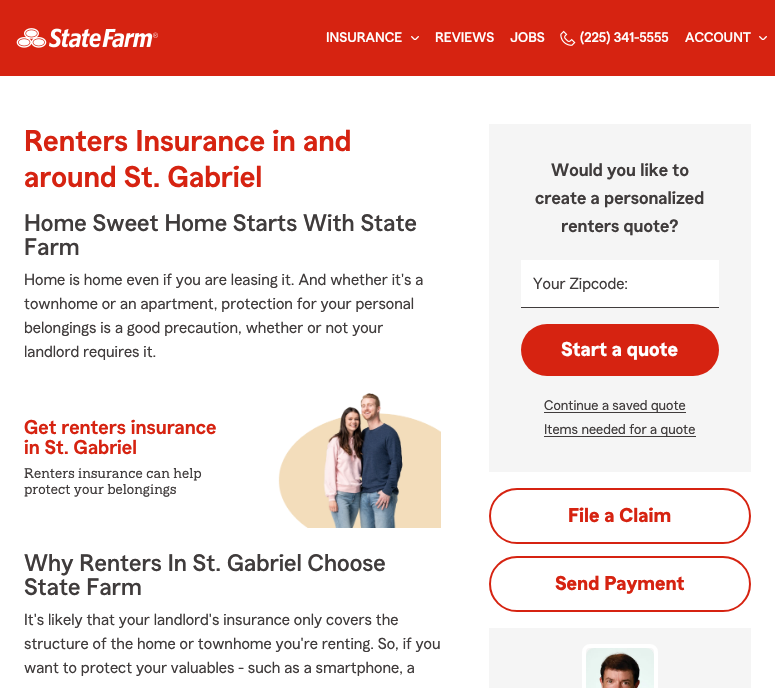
void draw(SkCanvas* canvas) {
  SkPaint paint;
  paint.setAntiAlias(true);
  auto face = [&](const char* family, int weight, float size, bool italic = false) {
    SkFontStyle style(weight, SkFontStyle::kNormal_Width,
      italic ? SkFontStyle::kItalic_Slant : SkFontStyle::kUpright_Slant);
    SkFont result(fontMgr->matchFamilyStyle(family, style), size);
    result.setSubpixel(true);
    return result;
  };
  auto paste = [&](const char* path, float x, float y, float w, float h) {
    auto image = SkImages::DeferredFromEncodedData(SkData::MakeFromFileName(path));
    canvas->drawImageRect(image, SkRect::MakeXYWH(x, y, w, h), SkSamplingOptions());
  };
  canvas->clear(0xffffffff);
  paint.setColor(0xffd62311);
  canvas->drawRect(SkRect::MakeXYWH(0, 0, 775, 76), paint);
  paste("img/1.png", 16, 28, 142, 20);
  paste("img/2.png", 411, 36, 8, 4);
  paste("img/3.png", 560, 30, 16, 16);
  paste("img/2.png", 759, 36, 8, 4);
  paste("img/4.png", 278, 393, 163, 135);
  {
    const struct { float x, y, w, h; SkColor color; } items[] = {
      {489, 124, 262, 348, 0xfff5f5f5},
      {521, 260, 198, 47, 0xffffffff},
      {521, 307, 198, 1, 0xff403c3c},
    };
    for (auto [x, y, w, h, color] : items) {
      paint.setColor(color);
      canvas->drawRect(SkRect::MakeXYWH(x, y, w, h), paint);
    }
  }
  paint.setColor(0xffd62311);
  canvas->drawRoundRect(SkRect::MakeXYWH(521, 324, 198, 52), 26, 26, paint);
  paint.setColor(0xff403c3c);
  canvas->drawRect(SkRect::MakeXYWH(544, 412, 142, 1), paint);
  canvas->drawRect(SkRect::MakeXYWH(544, 436, 152, 1), paint);
  paint.setStroke(true);
  paint.setStrokeWidth(2);
  paint.setColor(0xffd62311);
  canvas->drawRoundRect(SkRect::MakeXYWH(490, 489, 260, 54), 27, 27, paint);
  canvas->drawRoundRect(SkRect::MakeXYWH(490, 557, 260, 54), 27, 27, paint);
  paint.setStroke(false);
  paint.setColor(0xfff5f5f5);
  canvas->drawRect(SkRect::MakeXYWH(489, 628, 262, 60), paint);
  paint.setStroke(true);
  paint.setStrokeWidth(4);
  paint.setColor(0xffffffff);
  canvas->drawRoundRect(SkRect::MakeXYWH(584, 646, 72, 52), 6, 6, paint);
  paste("img/5.png", 586, 648, 68, 40);
  auto f0 = face("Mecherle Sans", 500, 14);
  paint.setStroke(false);
  {
    const struct { const char* s; float x, y; } items[] = {
      {"INSURANCE", 326, 42},
      {"REVIEWS", 435, 42},
      {"JOBS", 510, 42},
      {"(225) 341-5555", 580, 42},
      {"ACCOUNT", 685, 42},
    };
    for (auto [s, x, y] : items) {
      canvas->drawString(s, x, y, f0, paint);
    }
  }
  auto f1 = face("Mecherle Sans", 600, 30);
  paint.setColor(0xffd62311);
  canvas->drawString("Renters Insurance in and", 24, 151, f1, paint);
  canvas->drawString("around St. Gabriel", 24, 187, f1, paint);
  auto f2 = face("Mecherle Sans", 500, 24);
  paint.setColor(0xff403c3c);
  canvas->drawString("Home Sweet Home Starts With State", 24, 231, f2, paint);
  canvas->drawString("Farm", 24, 255, f2, paint);
  auto f3 = face("Mecherle Sans", 400, 16);
  {
    const struct { const char* s; float x, y; } items[] = {
      {"Home is home even if you are leasing it. And whether it's a", 24, 285},
      {"townhome or an apartment, protection for your personal", 24, 309},
      {"belongings is a good precaution, whether or not your", 24, 333},
      {"landlord requires it.", 24, 357},
    };
    for (auto [s, x, y] : items) {
      canvas->drawString(s, x, y, f3, paint);
    }
  }
  auto f4 = face("Mecherle Sans", 600, 20);
  paint.setColor(0xffd62311);
  canvas->drawString("Get renters insurance", 24, 434, f4, paint);
  canvas->drawString("in St. Gabriel", 24, 454, f4, paint);
  auto f5 = face("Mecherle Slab", 400, 14);
  paint.setColor(0xff403c3c);
  canvas->drawString("Renters insurance can help", 24, 478, f5, paint);
  canvas->drawString("protect your belongings", 24, 494, f5, paint);
  canvas->drawString("Why Renters In St. Gabriel Choose", 24, 571, f2, paint);
  canvas->drawString("State Farm", 24, 595, f2, paint);
  {
    const struct { const char* s; float x, y; } items[] = {
      {"It's likely that your landlord's insurance only covers the", 24, 625},
      {"structure of the home or townhome you're renting. So, if you", 24, 649},
      {"want to protect your valuables - such as a smartphone, a", 24, 673},
    };
    for (auto [s, x, y] : items) {
      canvas->drawString(s, x, y, f3, paint);
    }
  }
  auto f6 = face("Mecherle Sans", 600, 18);
  {
    const struct { const char* s; float x, y; } items[] = {
      {"Would you like to", 551, 176},
      {"create a personalized", 535, 204},
      {"renters quote?", 561, 232},
    };
    for (auto [s, x, y] : items) {
      canvas->drawString(s, x, y, f6, paint);
    }
  }
  canvas->drawString("Your Zipcode:", 533, 289, f3, paint);
  auto f7 = face("Mecherle Sans", 700, 20);
  paint.setColor(0xffffffff);
  canvas->drawString("Start a quote", 561, 356, f7, paint);
  auto f8 = face("Mecherle Sans", 400, 14);
  paint.setColor(0xff403c3c);
  canvas->drawString("Continue a saved quote", 544, 410, f8, paint);
  canvas->drawString("Items needed for a quote", 544, 434, f8, paint);
  paint.setColor(0xffd62311);
  canvas->drawString("File a Claim", 568, 522, f7, paint);
  canvas->drawString("Send Payment", 555, 590, f7, paint);
}
